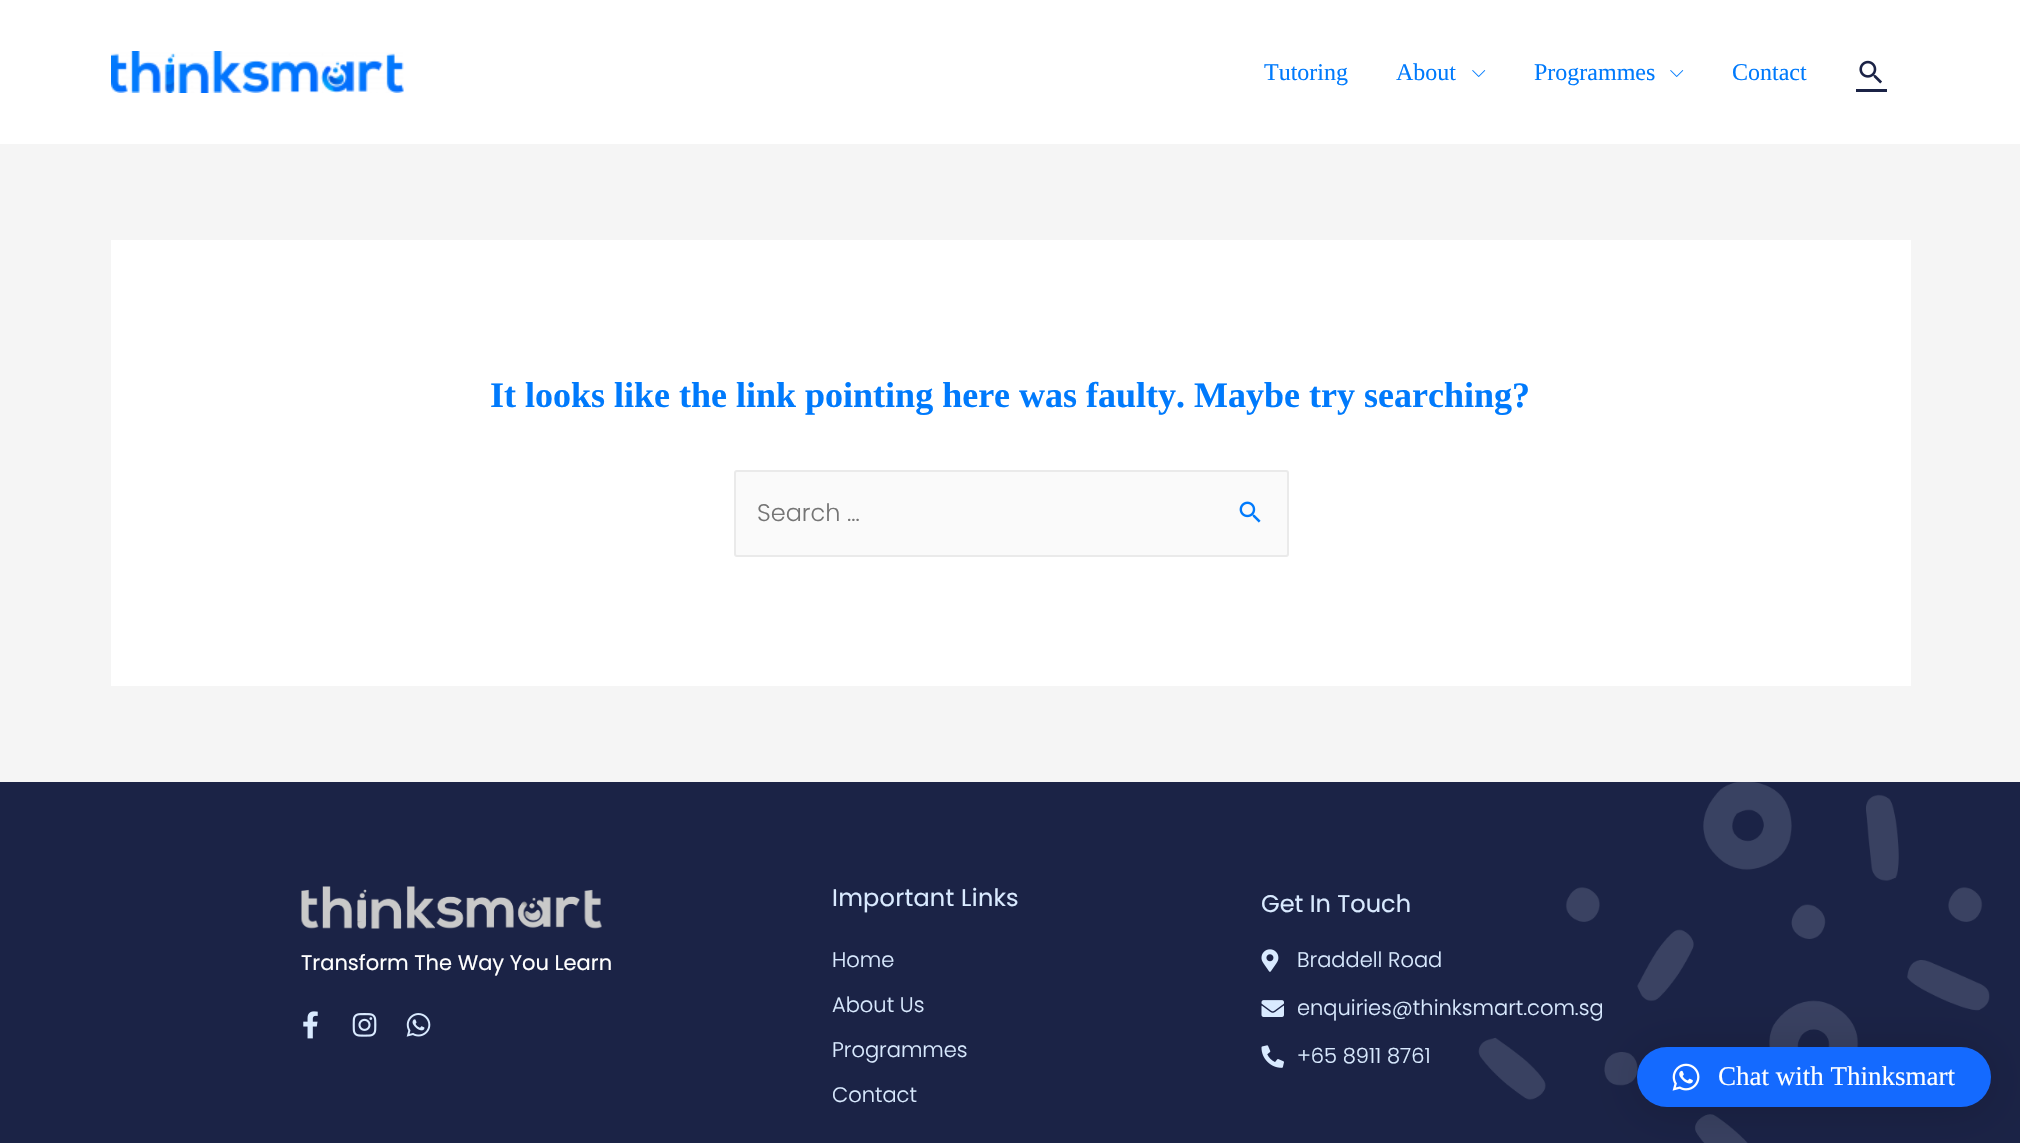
void draw(SkCanvas* canvas) {
  SkPaint paint;
  paint.setAntiAlias(true);
  auto face = [&](const char* family, int weight, float size, bool italic = false) {
    SkFontStyle style(weight, SkFontStyle::kNormal_Width,
      italic ? SkFontStyle::kItalic_Slant : SkFontStyle::kUpright_Slant);
    SkFont result(fontMgr->matchFamilyStyle(family, style), size);
    result.setSubpixel(true);
    return result;
  };
  auto writeSpaced = [&](const char* s, float x, float y, const SkFont& font, const SkPaint& ink, float letter, float word) {
    std::vector<SkGlyphID> glyphs(font.countText(s, strlen(s), SkTextEncoding::kUTF8));
    std::vector<float> xs(glyphs.size());
    font.textToGlyphs(s, strlen(s), SkTextEncoding::kUTF8, glyphs);
    font.getXPos(glyphs, xs, x);
    float extra = 0;
    for (size_t i = 0; i < glyphs.size(); i++) {
      xs[i] += extra;
      extra += letter + word * (glyphs[i] == font.unicharToGlyph(' '));
    }
    canvas->drawTextBlob(SkTextBlob::MakeFromPosHGlyphs(glyphs, xs, y, font), 0, 0, ink);
  };
  auto paste = [&](const char* path, float x, float y, float w, float h) {
    auto image = SkImages::DeferredFromEncodedData(SkData::MakeFromFileName(path));
    canvas->drawImageRect(image, SkRect::MakeXYWH(x, y, w, h), SkSamplingOptions());
  };
  canvas->clear(0xfff5f5f5);
  paint.setColor(0xffffffff);
  canvas->drawRect(SkRect::MakeXYWH(0, 0, 2020, 144), paint);
  paste("img/1.png", 111, 51, 293, 42);
  paste("img/2.png", 1472, 70, 14, 7);
  paste("img/2.png", 1670, 70, 14, 7);
  paint.setColor(0xff1b2346);
  canvas->drawRect(SkRect::MakeXYWH(1856, 89, 31, 3), paint);
  paste("img/3.png", 1859, 60, 23, 24);
  paint.setColor(0xffffffff);
  canvas->drawRect(SkRect::MakeXYWH(111, 240, 1800, 446), paint);
  paint.setColor(0xfffafafa);
  canvas->drawRoundRect(SkRect::MakeXYWH(735, 471, 553, 85), 2, 2, paint);
  paint.setStroke(true);
  paint.setStrokeWidth(2);
  paint.setColor(0xffeaeaea);
  canvas->drawRoundRect(SkRect::MakeXYWH(735, 471, 553, 85), 2, 2, paint);
  paste("img/4.png", 1239, 501, 22, 22);
  paint.setStroke(false);
  paint.setColor(0xff1b2346);
  canvas->drawRect(SkRect::MakeXYWH(0, 782, 2020, 361), paint);
  paste("img/5.png", 1478, 782, 512, 361);
  paste("img/6.png", 301, 886, 301, 43);
  paste("img/7.png", 303, 1011, 15, 28);
  paste("img/8.png", 352, 1013, 25, 24);
  paste("img/9.png", 406, 1013, 25, 24);
  paste("img/10.png", 1261, 949, 18, 23);
  paste("img/11.png", 1261, 1000, 23, 17);
  paste("img/12.png", 1261, 1045, 23, 23);
  paint.setColor(0x29000000);
  paint.setMaskFilter(SkMaskFilter::MakeBlur(kNormal_SkBlurStyle, 24));
  canvas->drawRoundRect(SkRect::MakeXYWH(1637, 1050, 354, 60), 30, 30, paint);
  paint.setMaskFilter(nullptr);
  paint.setColor(0xff146aff);
  canvas->drawRoundRect(SkRect::MakeXYWH(1637, 1047, 354, 60), 30, 30, paint);
  paste("img/13.png", 1672, 1063, 28, 28);
  auto f0 = face("Liberation Serif", 400, 24);
  paint.setColor(0xff007afc);
  {
    const struct { const char* s; float x, y; } items[] = {
      {"Tutoring", 1264, 80},
      {"About", 1396, 80},
      {"Programmes", 1534, 80},
      {"Contact", 1732, 80},
    };
    for (auto [s, x, y] : items) {
      canvas->drawString(s, x, y, f0, paint);
    }
  }
  auto f1 = face("Liberation Serif", 700, 36);
  canvas->drawString("It looks like the link pointing here was faulty. Maybe try searching?", 490, 407, f1, paint);
  auto f2 = face("Poppins", 300, 24);
  paint.setColor(0xff757575);
  canvas->drawString("Search …", 757, 521, f2, paint);
  auto f3 = face("Poppins", 400, 21);
  paint.setColor(0xffffffff);
  canvas->drawString("Transform The Way You Learn", 301, 970, f3, paint);
  auto f4 = face("Poppins", 400, 24);
  paint.setColor(0xffd9eaff);
  writeSpaced("Important Links", 832, 906, f4, paint, 0.25f, 0);
  auto f5 = face("Poppins", 300, 21);
  {
    const struct { const char* s; float x, y; } items[] = {
      {"Home", 832, 967},
      {"About Us", 832, 1012},
      {"Programmes", 832, 1057},
      {"Contact", 832, 1102},
    };
    for (auto [s, x, y] : items) {
      canvas->drawString(s, x, y, f5, paint);
    }
  }
  canvas->drawString("Get In Touch", 1261, 912, f4, paint);
  {
    const struct { const char* s; float x, y; } items[] = {
      {"Braddell Road", 1297, 967},
      {"enquiries@thinksmart.com.sg", 1297, 1015},
      {"+65 8911 8761", 1297, 1063},
    };
    for (auto [s, x, y] : items) {
      canvas->drawString(s, x, y, f5, paint);
    }
  }
  auto f6 = face("Liberation Serif", 400, 27);
  paint.setColor(0xffffffff);
  canvas->drawString("Chat with Thinksmart", 1718, 1085, f6, paint);
}
